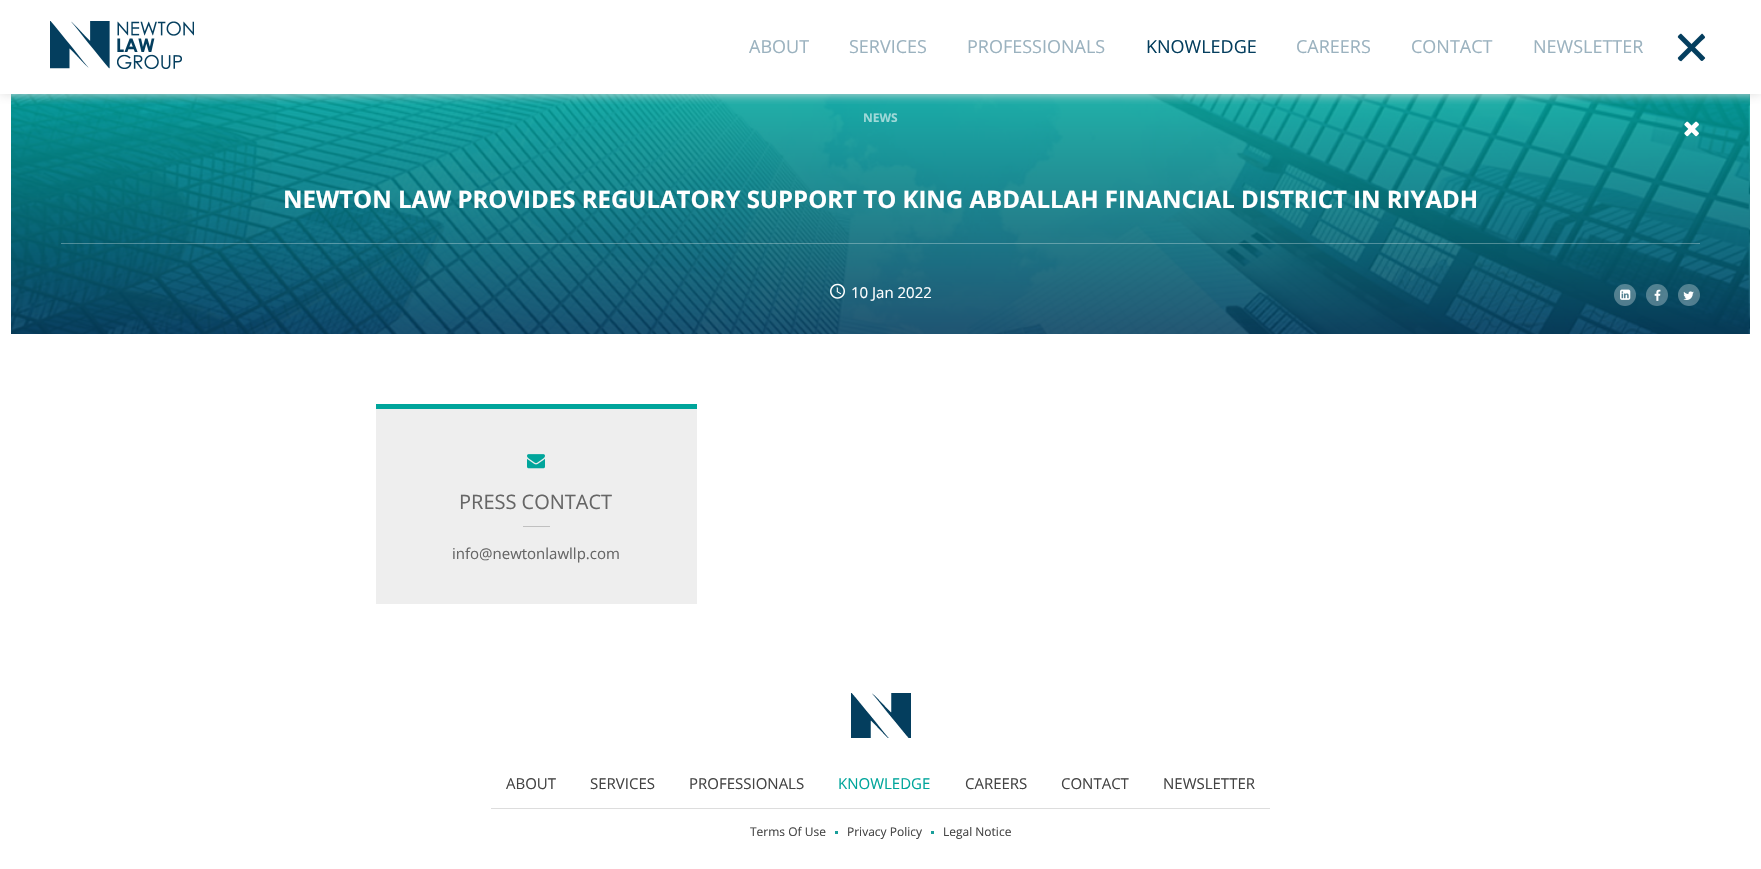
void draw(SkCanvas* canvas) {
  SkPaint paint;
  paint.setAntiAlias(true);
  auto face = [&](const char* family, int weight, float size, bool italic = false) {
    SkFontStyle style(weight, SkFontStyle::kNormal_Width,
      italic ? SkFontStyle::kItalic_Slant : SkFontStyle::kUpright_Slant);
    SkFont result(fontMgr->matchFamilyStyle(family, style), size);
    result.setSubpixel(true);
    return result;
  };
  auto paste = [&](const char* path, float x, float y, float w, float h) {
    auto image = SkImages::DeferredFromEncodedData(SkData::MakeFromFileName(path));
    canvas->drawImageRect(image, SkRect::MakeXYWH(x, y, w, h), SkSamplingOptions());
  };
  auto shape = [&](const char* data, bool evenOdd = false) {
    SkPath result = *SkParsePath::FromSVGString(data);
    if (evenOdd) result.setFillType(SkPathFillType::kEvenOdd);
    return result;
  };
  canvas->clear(0xffffffff);
  paste("img/2.png", 11, 94, 1739, 240);
  canvas->save();
  canvas->clipRect(SkRect::MakeXYWH(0, 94, 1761, 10));
  paint.setColor(0xffdddddd);
  paint.setMaskFilter(SkMaskFilter::MakeBlur(kNormal_SkBlurStyle, 5));
  canvas->drawRect(SkRect::MakeXYWH(0, 0, 1761, 94), paint);
  paint.setMaskFilter(nullptr);
  canvas->restore();
  paste("img/1.png", 50, 21, 144, 48);
  paint.setColor(0xff043e5e);
  canvas->drawPath(shape("M1681.5 34L1705 57.5C1705.5 58.5 1704.5 59 1704 59.5C1701 62.5 1701.5 61 1697.5 57L1678 37.5C1677 36.5 1680.5 33 1681.5 34Z"), paint);
  canvas->drawPath(shape("M1678 57.5L1701.5 34C1702.5 33.5 1703 34.5 1703.5 35C1706.5 38 1705 37.5 1701 41.5L1681.5 61C1680.5 62 1677 58.5 1678 57.5Z"), paint);
  paste("img/3.png", 1684, 121, 15, 16);
  paint.setColor(0x4affffff);
  canvas->drawRect(SkRect::MakeXYWH(61, 243, 1639, 1), paint);
  paste("img/4.png", 830, 283, 15, 16);
  paint.setColor(0x4dffffff);
  canvas->drawCircle(1625, 295, 11, paint);
  paste("img/5.png", 1620, 289, 11, 11);
  canvas->drawCircle(1657, 295, 11, paint);
  paste("img/6.png", 1654, 289, 7, 12);
  canvas->drawCircle(1689, 295, 11, paint);
  paste("img/7.png", 1683, 291, 11, 9);
  paint.setColor(0xffeeeeee);
  canvas->drawRect(SkRect::MakeXYWH(376, 409, 321, 195), paint);
  paint.setColor(0xff00a59b);
  canvas->drawRect(SkRect::MakeXYWH(376, 404, 321, 5), paint);
  paste("img/8.png", 527, 454, 18, 15);
  paint.setColor(0xffc0c0c0);
  canvas->drawRect(SkRect::MakeXYWH(523, 526, 27, 1), paint);
  paste("img/9.png", 851, 693, 60, 45);
  {
    const struct { float x, y, w, h; SkColor color; } items[] = {
      {491, 808, 779, 1, 0xffdddddd},
      {835, 831, 3, 3, 0xff199e9a},
      {931, 831, 3, 3, 0xff199e9a},
    };
    for (auto [x, y, w, h, color] : items) {
      paint.setColor(color);
      canvas->drawRect(SkRect::MakeXYWH(x, y, w, h), paint);
    }
  }
  auto f0 = face("Open Sans", 400, 18);
  paint.setColor(0xff9bb2bf);
  {
    const struct { const char* s; float x, y; } items[] = {
      {"ABOUT", 749, 53},
      {"SERVICES", 849, 53},
      {"PROFESSIONALS", 967, 53},
    };
    for (auto [s, x, y] : items) {
      canvas->drawString(s, x, y, f0, paint);
    }
  }
  paint.setColor(0xff043e5e);
  canvas->drawString("KNOWLEDGE", 1146, 53, f0, paint);
  paint.setColor(0xff9bb2bf);
  {
    const struct { const char* s; float x, y; } items[] = {
      {"CAREERS", 1296, 53},
      {"CONTACT", 1411, 53},
      {"NEWSLETTER", 1533, 53},
    };
    for (auto [s, x, y] : items) {
      canvas->drawString(s, x, y, f0, paint);
    }
  }
  auto f1 = face("Open Sans", 700, 12);
  paint.setColor(0xff9fd9d8);
  canvas->drawString("NEWS", 863, 122, f1, paint);
  auto f2 = face("Open Sans", 700, 24);
  paint.setColor(0xffffffff);
  canvas->drawString("NEWTON LAW PROVIDES REGULATORY SUPPORT TO KING ABDALLAH FINANCIAL DISTRICT IN RIYADH", 283, 208, f2, paint);
  auto f3 = face("Open Sans", 400, 15);
  canvas->drawString("10 Jan 2022", 851, 298, f3, paint);
  auto f4 = face("Open Sans", 400, 20);
  paint.setColor(0xff666666);
  canvas->drawString("PRESS CONTACT", 459, 509, f4, paint);
  canvas->drawString("info@newtonlawllp.com", 452, 559, f3, paint);
  paint.setColor(0xff444444);
  {
    const struct { const char* s; float x, y; } items[] = {
      {"ABOUT", 506, 789},
      {"SERVICES", 590, 789},
      {"PROFESSIONALS", 689, 789},
    };
    for (auto [s, x, y] : items) {
      canvas->drawString(s, x, y, f3, paint);
    }
  }
  paint.setColor(0xff00a59b);
  canvas->drawString("KNOWLEDGE", 838, 789, f3, paint);
  paint.setColor(0xff444444);
  {
    const struct { const char* s; float x, y; } items[] = {
      {"CAREERS", 965, 789},
      {"CONTACT", 1061, 789},
      {"NEWSLETTER", 1163, 789},
    };
    for (auto [s, x, y] : items) {
      canvas->drawString(s, x, y, f3, paint);
    }
  }
  auto f5 = face("Open Sans", 400, 12);
  {
    const struct { const char* s; float x, y; } items[] = {
      {"Terms Of Use", 750, 836},
      {"Privacy Policy", 847, 836},
      {"Legal Notice", 943, 836},
    };
    for (auto [s, x, y] : items) {
      canvas->drawString(s, x, y, f5, paint);
    }
  }
}
